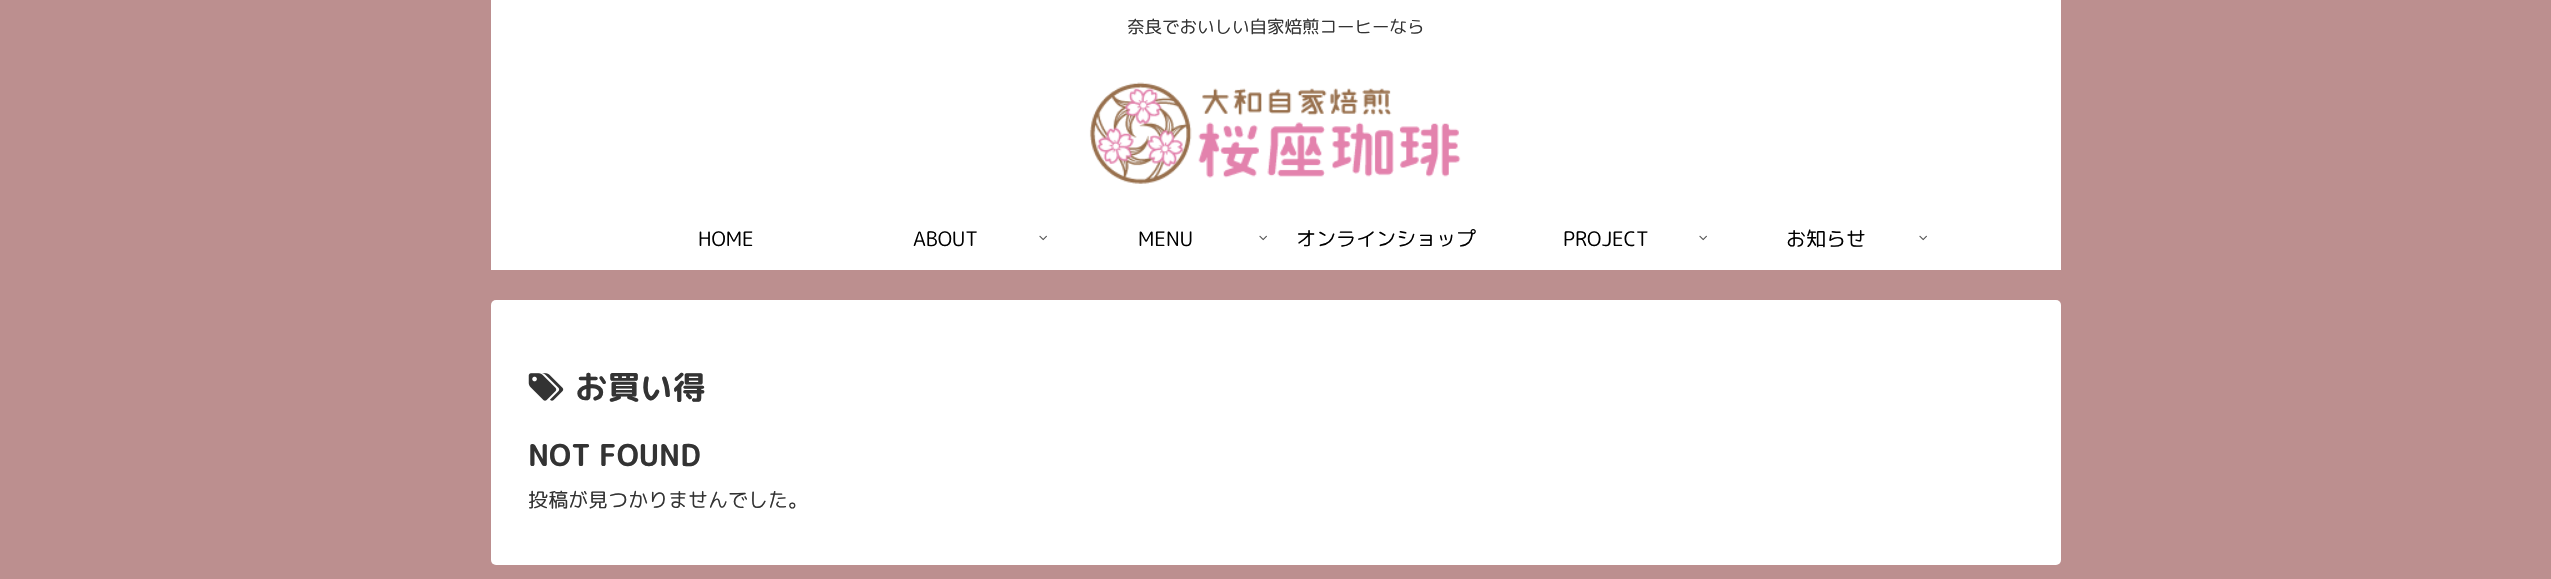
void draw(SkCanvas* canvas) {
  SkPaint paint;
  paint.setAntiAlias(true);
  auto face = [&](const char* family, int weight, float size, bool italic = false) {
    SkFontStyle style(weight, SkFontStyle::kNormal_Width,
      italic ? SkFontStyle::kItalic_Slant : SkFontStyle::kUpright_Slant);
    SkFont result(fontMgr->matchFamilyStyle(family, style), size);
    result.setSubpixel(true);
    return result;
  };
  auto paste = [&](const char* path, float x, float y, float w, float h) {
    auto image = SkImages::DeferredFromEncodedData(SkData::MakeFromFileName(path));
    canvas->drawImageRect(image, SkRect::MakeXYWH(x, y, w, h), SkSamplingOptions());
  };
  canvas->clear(0xffbc8f8f);
  paint.setColor(0xffffffff);
  canvas->drawRect(SkRect::MakeXYWH(491, 0, 1570, 270), paint);
  paste("img/1.png", 1089, 82, 372, 102);
  paste("img/2.png", 1039, 235, 8, 6);
  paste("img/2.png", 1259, 235, 8, 6);
  paste("img/2.png", 1699, 235, 8, 6);
  paste("img/2.png", 1919, 235, 8, 6);
  canvas->drawRoundRect(SkRect::MakeXYWH(491, 300, 1570, 265), 5, 5, paint);
  paste("img/3.png", 528, 373, 36, 28);
  auto f0 = face("Rounded Mplus 1c", 400, 17.5f);
  paint.setColor(0xff333333);
  canvas->drawString("奈良でおいしい自家焙煎コーヒーなら", 1127, 33, f0, paint);
  auto f1 = face("Rounded Mplus 1c", 400, 20);
  paint.setColor(0xff000000);
  {
    const struct { const char* s; float x, y; } items[] = {
      {"HOME", 698, 246},
      {"ABOUT", 913, 246},
      {"MENU", 1138, 246},
      {"オンラインショップ", 1296, 246},
      {"PROJECT", 1563, 246},
      {"お知らせ", 1786, 246},
    };
    for (auto [s, x, y] : items) {
      canvas->drawString(s, x, y, f1, paint);
    }
  }
  auto f2 = face("Rounded Mplus 1c Bold", 700, 32.5f);
  paint.setColor(0xff333333);
  canvas->drawString("お買い得", 575, 399, f2, paint);
  auto f3 = face("Rounded Mplus 1c Bold", 700, 30);
  canvas->drawString("NOT FOUND", 528, 466, f3, paint);
  canvas->drawString("投稿が見つかりませんでした。", 528, 507, f1, paint);
}
